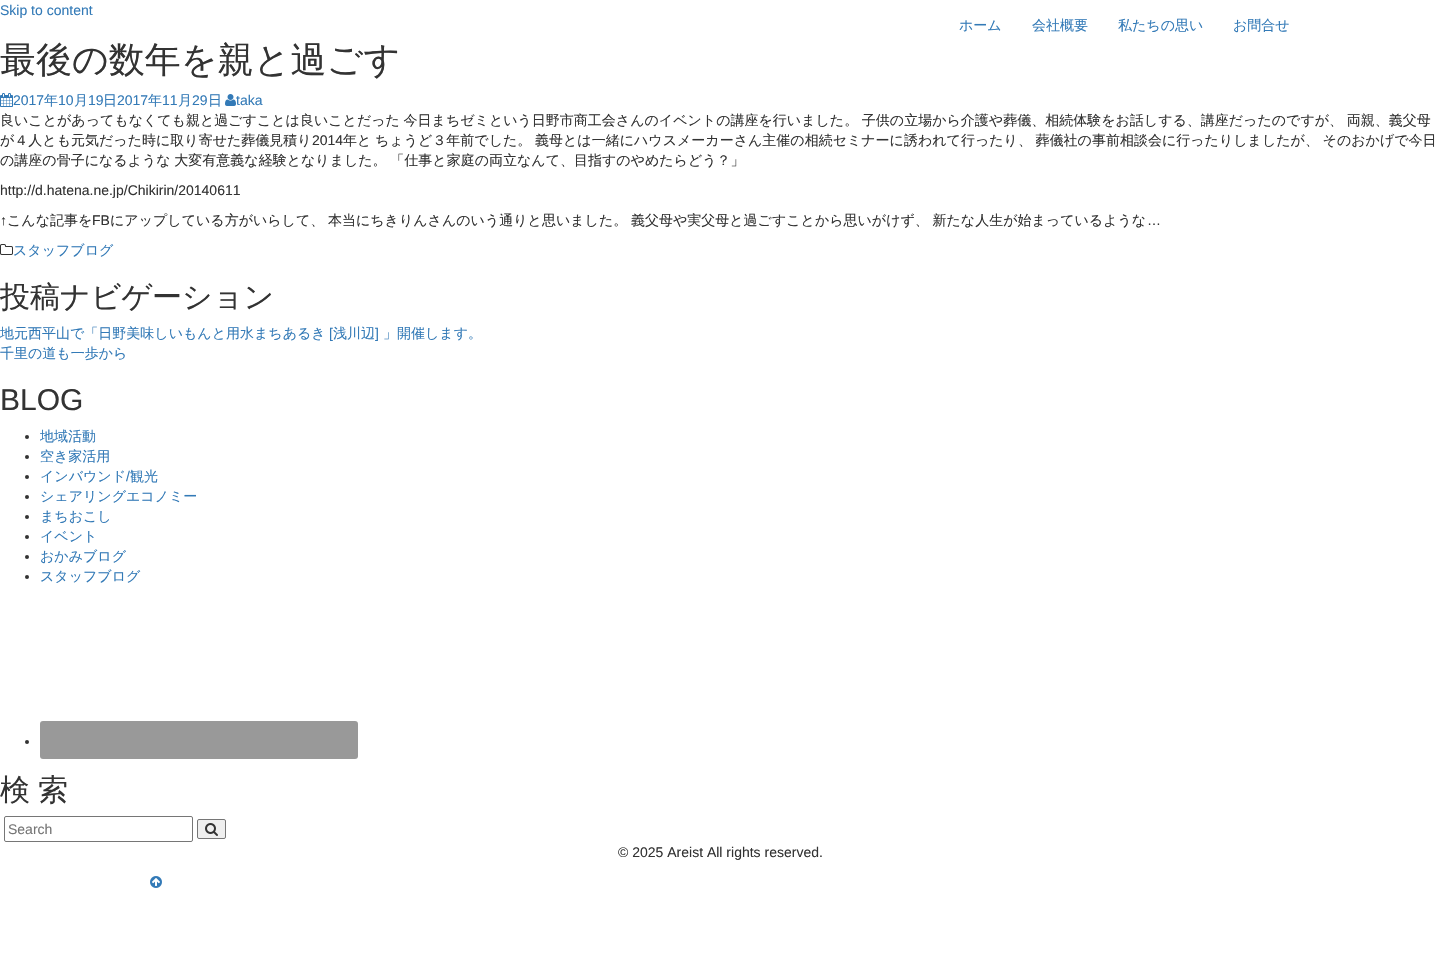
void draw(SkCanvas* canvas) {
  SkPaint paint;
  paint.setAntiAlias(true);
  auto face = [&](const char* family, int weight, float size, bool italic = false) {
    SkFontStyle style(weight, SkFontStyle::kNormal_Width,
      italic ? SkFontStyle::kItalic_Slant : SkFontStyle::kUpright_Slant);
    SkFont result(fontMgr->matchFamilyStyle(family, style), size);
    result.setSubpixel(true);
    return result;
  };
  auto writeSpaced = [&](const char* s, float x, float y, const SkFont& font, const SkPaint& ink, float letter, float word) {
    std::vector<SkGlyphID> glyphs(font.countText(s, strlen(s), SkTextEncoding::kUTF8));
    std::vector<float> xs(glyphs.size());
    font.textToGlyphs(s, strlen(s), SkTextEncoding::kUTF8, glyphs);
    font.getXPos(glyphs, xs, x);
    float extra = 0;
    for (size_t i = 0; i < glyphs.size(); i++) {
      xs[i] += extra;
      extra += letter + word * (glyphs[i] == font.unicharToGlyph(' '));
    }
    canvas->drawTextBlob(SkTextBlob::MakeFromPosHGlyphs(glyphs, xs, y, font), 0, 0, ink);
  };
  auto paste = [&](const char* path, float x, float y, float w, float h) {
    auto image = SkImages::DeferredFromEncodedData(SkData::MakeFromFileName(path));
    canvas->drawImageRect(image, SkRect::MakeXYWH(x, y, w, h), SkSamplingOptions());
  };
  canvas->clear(0xffffffff);
  paste("img/1.png", 0, 93, 13, 14);
  paste("img/2.png", 225, 94, 11, 12);
  paste("img/3.png", 0, 244, 13, 11);
  paint.setColor(0xff333333);
  canvas->drawCircle(27, 437, 2, paint);
  canvas->drawCircle(27, 457, 2, paint);
  canvas->drawCircle(27, 477, 2, paint);
  canvas->drawCircle(27, 497, 2, paint);
  canvas->drawCircle(27, 517, 2, paint);
  canvas->drawCircle(27, 537, 2, paint);
  canvas->drawCircle(27, 557, 2, paint);
  canvas->drawCircle(27, 577, 2, paint);
  canvas->drawCircle(27, 742, 2, paint);
  paint.setColor(0xff999999);
  canvas->drawRoundRect(SkRect::MakeXYWH(40, 721, 318, 38), 3, 3, paint);
  paint.setStroke(true);
  paint.setStrokeWidth(1);
  paint.setColor(0xff767676);
  canvas->drawRoundRect(SkRect::MakeXYWH(4.5f, 816.5f, 188, 25), 1.5f, 1.5f, paint);
  paint.setStroke(false);
  paint.setColor(0xffefefef);
  canvas->drawRoundRect(SkRect::MakeXYWH(197.5f, 819.5f, 28, 19), 1.5f, 1.5f, paint);
  paint.setStroke(true);
  paint.setColor(0xff767676);
  canvas->drawRoundRect(SkRect::MakeXYWH(197.5f, 819.5f, 28, 19), 1.5f, 1.5f, paint);
  paste("img/4.png", 205, 823, 13, 13);
  paste("img/5.png", 150, 876, 12, 12);
  auto f0 = face("Liberation Sans", 400, 14);
  paint.setStroke(false);
  paint.setColor(0xff337ab7);
  canvas->drawString("Skip to content", 0, 15, f0, paint);
  auto f1 = face("WenQuanYi Zen Hei", 500, 14);
  {
    const struct { const char* s; float x, y; } items[] = {
      {"ホーム", 959, 30},
      {"会社概要", 1032, 30},
      {"私たちの思い", 1118, 30},
      {"お問合せ", 1233, 30},
    };
    for (auto [s, x, y] : items) {
      canvas->drawString(s, x, y, f1, paint);
    }
  }
  auto f2 = face("WenQuanYi Zen Hei", 500, 36);
  paint.setColor(0xff333333);
  canvas->drawString("最後の数年を親と過ごす", 0, 72, f2, paint);
  paint.setColor(0xff337ab7);
  canvas->drawString("2017", 13, 105, f0, paint);
  canvas->drawString("年", 44, 105, f1, paint);
  canvas->drawString("10", 58, 105, f0, paint);
  canvas->drawString("月", 74, 105, f1, paint);
  canvas->drawString("19", 88, 105, f0, paint);
  canvas->drawString("日", 103, 105, f1, paint);
  canvas->drawString("2017", 117, 105, f0, paint);
  canvas->drawString("年", 148, 105, f1, paint);
  canvas->drawString("11", 162, 105, f0, paint);
  canvas->drawString("月", 178, 105, f1, paint);
  canvas->drawString("29", 192, 105, f0, paint);
  canvas->drawString("日", 208, 105, f1, paint);
  canvas->drawString("taka", 236, 105, f0, paint);
  paint.setColor(0xff333333);
  writeSpaced("良いことがあってもなくても親と過ごすことは良いことだった 今日まちゼミという日野市商工会さんのイベントの講座を行いました。 子供の立場から介護や葬儀、相続体験をお話しする、講座だったのですが、 両親、義父母", 0, 125, f1, paint, 0, -0.5f);
  canvas->drawString("が４人とも元気だった時に取り寄せた葬儀見積り", 0, 145, f1, paint);
  canvas->drawString("2014", 312, 145, f0, paint);
  writeSpaced("年と ちょうど３年前でした。 義母とは一緒にハウスメーカーさん主催の相続セミナーに誘われて行ったり、 葬儀社の事前相談会に行ったりしましたが、 そのおかげで今日", 343, 145, f1, paint, 0, -0.5f);
  writeSpaced("の講座の骨子になるような 大変有意義な経験となりました。 「仕事と家庭の両立なんて、目指すのやめたらどう？」", 0, 165, f1, paint, 0, -0.5f);
  canvas->drawString("http://d.hatena.ne.jp/Chikirin/20140611", 0, 195, f0, paint);
  canvas->drawString("↑", 0, 225, f0, paint);
  canvas->drawString("こんな記事を", 7, 225, f1, paint);
  canvas->drawString("FB", 92, 225, f0, paint);
  writeSpaced("にアップしている方がいらして、 本当にちきりんさんのいう通りと思いました。 義父母や実父母と過ごすことから思いがけず、 新たな人生が始まっているような", 110, 225, f1, paint, 0, -0.5f);
  canvas->drawString("…", 1147, 225, f0, paint);
  paint.setColor(0xff337ab7);
  canvas->drawString("スタッフブログ", 13, 255, f1, paint);
  auto f3 = face("WenQuanYi Zen Hei", 500, 30);
  paint.setColor(0xff333333);
  canvas->drawString("投稿ナビゲーション", 0, 307, f3, paint);
  paint.setColor(0xff337ab7);
  canvas->drawString("地元西平山で「日野美味しいもんと用水まちあるき", 0, 338, f1, paint);
  canvas->drawString("[", 329, 338, f0, paint);
  canvas->drawString("浅川辺", 333, 338, f1, paint);
  canvas->drawString("]", 375, 338, f0, paint);
  canvas->drawString("」開催します。", 383, 338, f1, paint);
  canvas->drawString("千里の道も一歩から", 0, 358, f1, paint);
  auto f4 = face("Liberation Sans", 400, 30);
  paint.setColor(0xff333333);
  canvas->drawString("BLOG", 0, 410, f4, paint);
  paint.setColor(0xff337ab7);
  {
    const struct { const char* s; float x, y; } items[] = {
      {"地域活動", 40, 441},
      {"空き家活用", 40, 461},
      {"インバウンド", 40, 481},
    };
    for (auto [s, x, y] : items) {
      canvas->drawString(s, x, y, f1, paint);
    }
  }
  canvas->drawString("/", 126, 481, f0, paint);
  {
    const struct { const char* s; float x, y; } items[] = {
      {"観光", 130, 481},
      {"シェアリングエコノミー", 40, 501},
      {"まちおこし", 40, 521},
      {"イベント", 40, 541},
      {"おかみブログ", 40, 561},
      {"スタッフブログ", 40, 581},
    };
    for (auto [s, x, y] : items) {
      canvas->drawString(s, x, y, f1, paint);
    }
  }
  paint.setColor(0xff333333);
  writeSpaced("検 索", 0, 800, f3, paint, 0, -1);
  paint.setColor(0xff757575);
  canvas->drawString("Search", 8, 834, f0, paint);
  paint.setColor(0xff333333);
  canvas->drawString("© 2025 Areist All rights reserved.", 618, 857, f0, paint);
}
